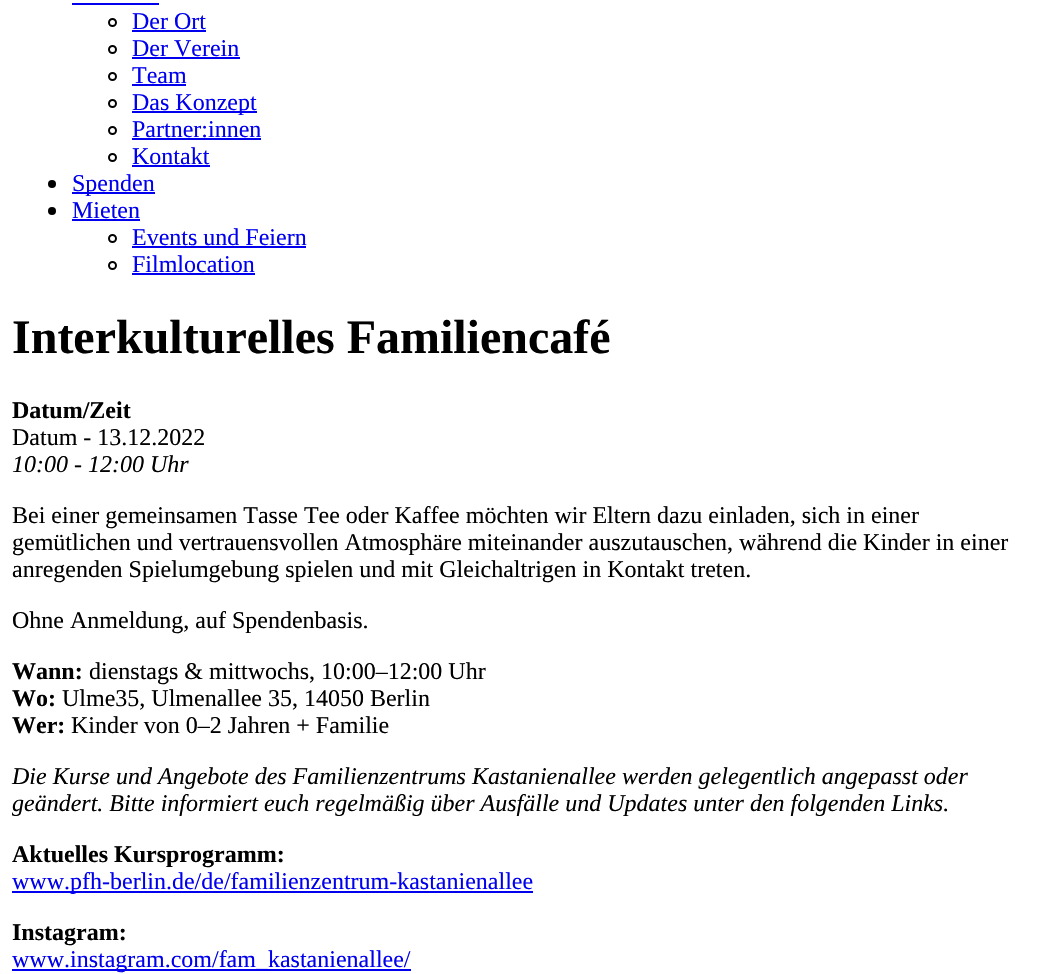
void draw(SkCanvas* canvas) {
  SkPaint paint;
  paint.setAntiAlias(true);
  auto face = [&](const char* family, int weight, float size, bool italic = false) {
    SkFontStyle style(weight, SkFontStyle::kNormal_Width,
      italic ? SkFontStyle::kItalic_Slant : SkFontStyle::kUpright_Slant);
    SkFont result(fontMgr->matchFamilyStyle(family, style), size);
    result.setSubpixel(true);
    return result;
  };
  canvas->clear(0xffffffff);
  paint.setColor(0xff0000ee);
  canvas->drawRect(SkRect::MakeXYWH(72, 3, 87, 2), paint);
  paint.setStroke(true);
  paint.setStrokeWidth(2);
  paint.setColor(0xff000000);
  canvas->drawCircle(112.5f, 22.5f, 3.5f, paint);
  paint.setStroke(false);
  paint.setColor(0xff0000ee);
  canvas->drawRect(SkRect::MakeXYWH(132, 30, 74, 2), paint);
  paint.setStroke(true);
  paint.setColor(0xff000000);
  canvas->drawCircle(112.5f, 49.5f, 3.5f, paint);
  paint.setStroke(false);
  paint.setColor(0xff0000ee);
  canvas->drawRect(SkRect::MakeXYWH(132, 57, 108, 2), paint);
  paint.setStroke(true);
  paint.setColor(0xff000000);
  canvas->drawCircle(112.5f, 76.5f, 3.5f, paint);
  paint.setStroke(false);
  paint.setColor(0xff0000ee);
  canvas->drawRect(SkRect::MakeXYWH(132, 84, 54, 2), paint);
  paint.setStroke(true);
  paint.setColor(0xff000000);
  canvas->drawCircle(112.5f, 103.5f, 3.5f, paint);
  paint.setStroke(false);
  paint.setColor(0xff0000ee);
  canvas->drawRect(SkRect::MakeXYWH(132, 111, 125, 2), paint);
  paint.setStroke(true);
  paint.setColor(0xff000000);
  canvas->drawCircle(112.5f, 130.5f, 3.5f, paint);
  paint.setStroke(false);
  paint.setColor(0xff0000ee);
  canvas->drawRect(SkRect::MakeXYWH(132, 138, 129, 2), paint);
  paint.setStroke(true);
  paint.setColor(0xff000000);
  canvas->drawCircle(112.5f, 157.5f, 3.5f, paint);
  paint.setStroke(false);
  paint.setColor(0xff0000ee);
  canvas->drawRect(SkRect::MakeXYWH(132, 165, 78, 2), paint);
  paint.setColor(0xff000000);
  canvas->drawCircle(52, 184, 4, paint);
  paint.setColor(0xff0000ee);
  canvas->drawRect(SkRect::MakeXYWH(72, 192, 83, 2), paint);
  paint.setColor(0xff000000);
  canvas->drawCircle(52, 211, 4, paint);
  paint.setColor(0xff0000ee);
  canvas->drawRect(SkRect::MakeXYWH(72, 219, 68, 2), paint);
  paint.setStroke(true);
  paint.setColor(0xff000000);
  canvas->drawCircle(112.5f, 238.5f, 3.5f, paint);
  paint.setStroke(false);
  paint.setColor(0xff0000ee);
  canvas->drawRect(SkRect::MakeXYWH(132, 246, 174, 2), paint);
  paint.setStroke(true);
  paint.setColor(0xff000000);
  canvas->drawCircle(112.5f, 265.5f, 3.5f, paint);
  paint.setStroke(false);
  {
    const struct { float x, y, w, h; SkColor color; } items[] = {
      {132, 273, 123, 2, 0xff0000ee},
      {12, 891, 521, 2, 0xff0000ee},
      {12, 969, 399, 2, 0xff0000ee},
    };
    for (auto [x, y, w, h, color] : items) {
      paint.setColor(color);
      canvas->drawRect(SkRect::MakeXYWH(x, y, w, h), paint);
    }
  }
  auto f0 = face("Liberation Serif", 400, 24);
  {
    const struct { const char* s; float x, y; } items[] = {
      {"Der Ort", 132, 29},
      {"Der Verein", 132, 56},
      {"Team", 132, 83},
      {"Das Konzept", 132, 110},
      {"Partner:innen", 132, 137},
      {"Kontakt", 132, 164},
      {"Spenden", 72, 191},
      {"Mieten", 72, 218},
      {"Events und Feiern", 132, 245},
      {"Filmlocation", 132, 272},
    };
    for (auto [s, x, y] : items) {
      canvas->drawString(s, x, y, f0, paint);
    }
  }
  auto f1 = face("Liberation Serif", 700, 48);
  paint.setColor(0xff000000);
  canvas->drawString("Interkulturelles Familiencafé", 12, 353, f1, paint);
  auto f2 = face("Liberation Serif", 700, 24);
  canvas->drawString("Datum/Zeit", 12, 418, f2, paint);
  canvas->drawString("Datum - 13.12.2022", 12, 445, f0, paint);
  auto f3 = face("Liberation Serif", 400, 24, true);
  canvas->drawString("10:00 - 12:00 Uhr", 12, 472, f3, paint);
  {
    const struct { const char* s; float x, y; } items[] = {
      {"Bei einer gemeinsamen Tasse Tee oder Kaffee möchten wir Eltern dazu einladen, sich in einer", 12, 523},
      {"gemütlichen und vertrauensvollen Atmosphäre miteinander auszutauschen, während die Kinder in einer", 12, 550},
      {"anregenden Spielumgebung spielen und mit Gleichaltrigen in Kontakt treten.", 12, 577},
      {"Ohne Anmeldung, auf Spendenbasis.", 12, 628},
    };
    for (auto [s, x, y] : items) {
      canvas->drawString(s, x, y, f0, paint);
    }
  }
  canvas->drawString("Wann:", 12, 679, f2, paint);
  canvas->drawString("dienstags & mittwochs, 10:00–12:00 Uhr", 89, 679, f0, paint);
  canvas->drawString("Wo:", 12, 706, f2, paint);
  canvas->drawString("Ulme35, Ulmenallee 35, 14050 Berlin", 62, 706, f0, paint);
  canvas->drawString("Wer:", 12, 733, f2, paint);
  canvas->drawString("Kinder von 0–2 Jahren + Familie", 71, 733, f0, paint);
  canvas->drawString("Die Kurse und Angebote des Familienzentrums Kastanienallee werden gelegentlich angepasst oder", 12, 784, f3, paint);
  canvas->drawString("geändert. Bitte informiert euch regelmäßig über Ausfälle und Updates unter den folgenden Links.", 12, 811, f3, paint);
  canvas->drawString("Aktuelles Kursprogramm:", 12, 862, f2, paint);
  paint.setColor(0xff0000ee);
  canvas->drawString("www.pfh-berlin.de/de/familienzentrum-kastanienallee", 12, 889, f0, paint);
  paint.setColor(0xff000000);
  canvas->drawString("Instagram:", 12, 940, f2, paint);
  paint.setColor(0xff0000ee);
  canvas->drawString("www.instagram.com/fam_kastanienallee/", 12, 967, f0, paint);
}
